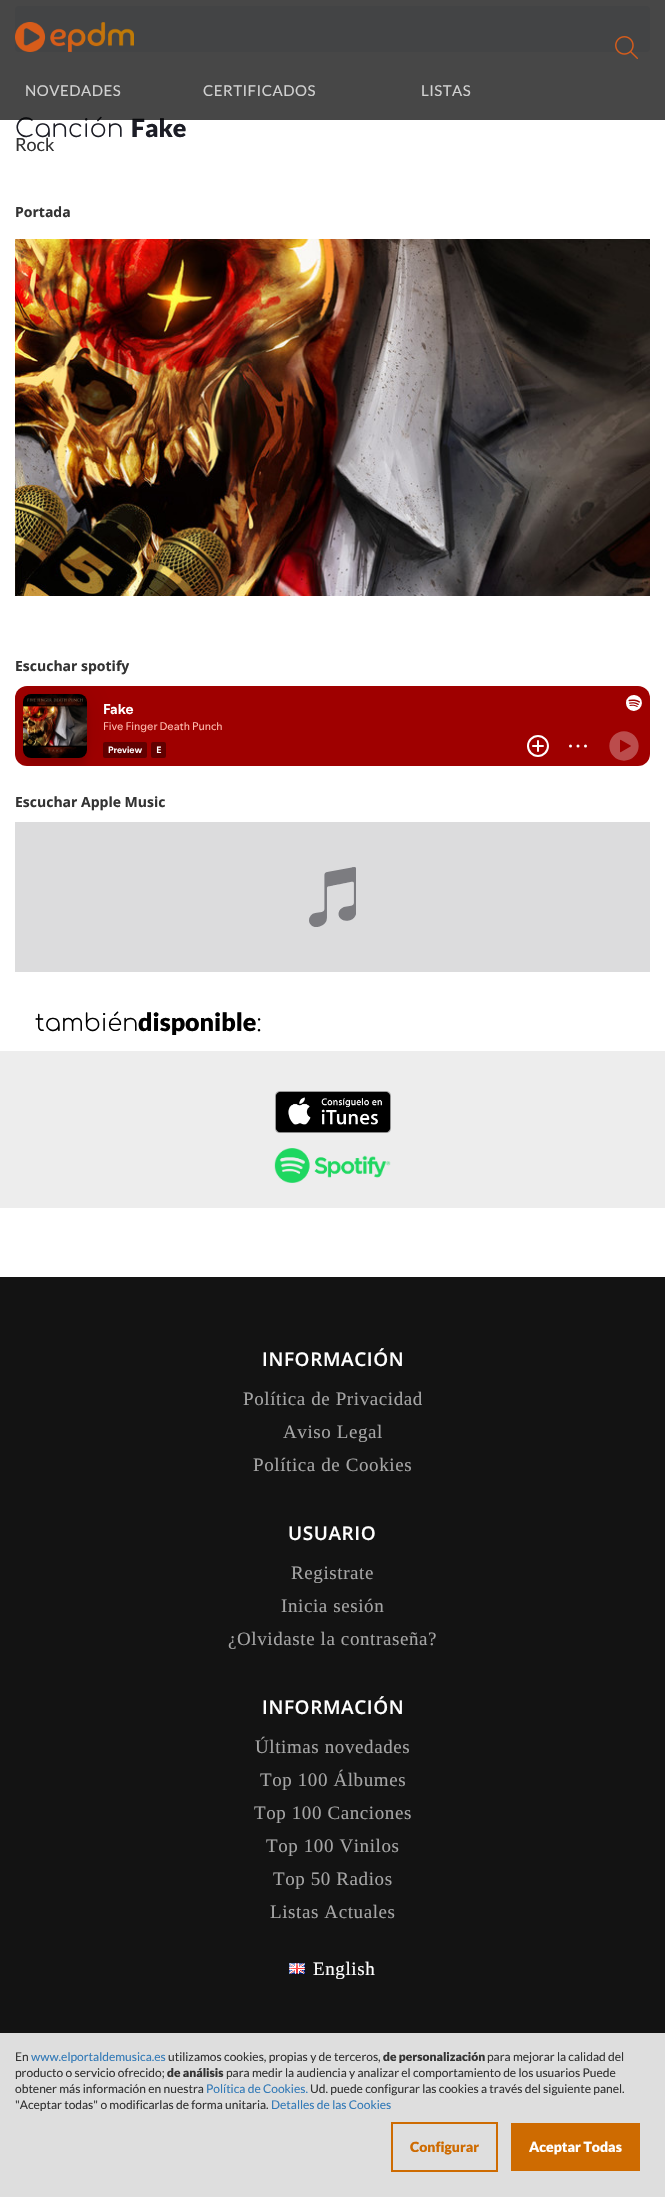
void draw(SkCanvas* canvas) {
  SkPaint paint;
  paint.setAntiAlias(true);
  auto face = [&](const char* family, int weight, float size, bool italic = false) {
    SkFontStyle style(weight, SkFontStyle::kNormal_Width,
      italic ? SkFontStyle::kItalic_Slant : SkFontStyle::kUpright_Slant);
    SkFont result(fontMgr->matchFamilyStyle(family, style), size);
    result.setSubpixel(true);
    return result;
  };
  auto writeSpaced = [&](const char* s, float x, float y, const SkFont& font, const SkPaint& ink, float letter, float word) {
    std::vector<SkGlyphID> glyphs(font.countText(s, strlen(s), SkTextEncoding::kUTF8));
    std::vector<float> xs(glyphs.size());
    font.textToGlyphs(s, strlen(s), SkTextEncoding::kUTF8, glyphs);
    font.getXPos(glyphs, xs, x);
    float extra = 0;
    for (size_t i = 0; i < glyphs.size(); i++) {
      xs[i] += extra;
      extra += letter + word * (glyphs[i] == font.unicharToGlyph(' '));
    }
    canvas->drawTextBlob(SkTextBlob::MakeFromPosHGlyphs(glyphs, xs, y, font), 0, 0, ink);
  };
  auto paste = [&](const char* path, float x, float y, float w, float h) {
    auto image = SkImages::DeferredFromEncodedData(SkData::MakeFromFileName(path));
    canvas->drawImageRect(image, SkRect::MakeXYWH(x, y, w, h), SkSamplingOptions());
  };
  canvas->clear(0xff131313);
  paint.setColor(0xffffffff);
  canvas->drawRect(SkRect::MakeXYWH(0, 0, 665, 1277), paint);
  paint.setColor(0xfff1f3f6);
  canvas->drawRoundRect(SkRect::MakeXYWH(15, 6, 635, 46), 4, 4, paint);
  paste("img/3.png", 15, 239, 635, 357);
  paste("img/4.png", 15, 686, 635, 80);
  paste("img/5.png", 15, 822, 635, 150);
  paint.setColor(0xffededed);
  canvas->drawRect(SkRect::MakeXYWH(0, 1051, 665, 157), paint);
  paste("img/6.png", 275, 1091, 116, 42);
  paste("img/7.png", 274, 1148, 117, 35);
  paste("img/8.png", 289, 1963, 16, 11);
  paint.setColor(0xffdedede);
  canvas->drawRect(SkRect::MakeXYWH(0, 2033, 665, 164), paint);
  paint.setStroke(true);
  paint.setStrokeWidth(2);
  paint.setColor(0xffce6b01);
  canvas->drawRect(SkRect::MakeXYWH(392, 2123, 105, 48), paint);
  paint.setStroke(false);
  canvas->drawRect(SkRect::MakeXYWH(511, 2123, 129, 48), paint);
  auto f0 = face("Comfortaa", 300, 25);
  paint.setColor(0xff1c1d26);
  canvas->drawString("Canción", 15, 137, f0, paint);
  auto f1 = face("Lato", 900, 25);
  canvas->drawString("Fake", 131, 137, f1, paint);
  paint.setColor(0xb8000000);
  canvas->drawRect(SkRect::MakeXYWH(0, 0, 665, 120), paint);
  paste("img/2.png", 615, 36, 23, 23);
  auto f2 = face("Lato", 400, 15);
  paint.setColor(0xffd1d1d1);
  {
    const struct { const char* s; float x, y; } items[] = {
      {"LISTAS", 421, 96},
      {"CERTIFICADOS", 203, 96},
      {"NOVEDADES", 25, 96},
    };
    for (auto [s, x, y] : items) {
      writeSpaced(s, x, y, f2, paint, 0.5f, 0);
    }
  }
  paste("img/1.png", 15, 22, 119, 30);
  auto f3 = face("Lato", 400, 18);
  paint.setColor(0xff333333);
  canvas->drawString("Rock", 15, 151, f3, paint);
  auto f4 = face("Open Sans", 700, 14);
  {
    const struct { const char* s; float x, y; } items[] = {
      {"Portada", 15, 217},
      {"Escuchar spotify", 15, 671},
      {"Escuchar Apple Music", 15, 807},
    };
    for (auto [s, x, y] : items) {
      canvas->drawString(s, x, y, f4, paint);
    }
  }
  auto f5 = face("Comfortaa", 300, 24);
  paint.setColor(0xff000000);
  canvas->drawString("también", 35, 1031, f5, paint);
  canvas->drawString("disponible", 138, 1031, f1, paint);
  canvas->drawString(":", 257, 1031, f5, paint);
  auto f6 = face("Open Sans", 600, 19);
  paint.setColor(0xffffffff);
  writeSpaced("INFORMACIÓN", 262, 1366, f6, paint, 0.6f, 0);
  auto f7 = face("Liberation Serif", 400, 19);
  paint.setColor(0xffa5a5a5);
  {
    const struct { const char* s; float x, y; } items[] = {
      {"Política de Privacidad", 243, 1405},
      {"Aviso Legal", 283, 1438},
      {"Política de Cookies", 253, 1471},
    };
    for (auto [s, x, y] : items) {
      writeSpaced(s, x, y, f7, paint, 0.6f, 0);
    }
  }
  paint.setColor(0xffffffff);
  writeSpaced("USUARIO", 288, 1540, f6, paint, 0.6f, 0);
  paint.setColor(0xffa5a5a5);
  {
    const struct { const char* s; float x, y; } items[] = {
      {"Registrate", 291, 1579},
      {"Inicia sesión", 281, 1612},
      {"¿Olvidaste la contraseña?", 228, 1645},
    };
    for (auto [s, x, y] : items) {
      writeSpaced(s, x, y, f7, paint, 0.6f, 0);
    }
  }
  paint.setColor(0xffffffff);
  writeSpaced("INFORMACIÓN", 262, 1714, f6, paint, 0.6f, 0);
  paint.setColor(0xffa5a5a5);
  {
    const struct { const char* s; float x, y; } items[] = {
      {"Últimas novedades", 255, 1753},
      {"Top 100 Álbumes", 260, 1786},
      {"Top 100 Canciones", 254, 1819},
      {"Top 100 Vinilos", 266, 1852},
      {"Top 50 Radios", 273, 1885},
      {"Listas Actuales", 270, 1918},
    };
    for (auto [s, x, y] : items) {
      writeSpaced(s, x, y, f7, paint, 0.6f, 0);
    }
  }
  paint.setColor(0xffffffff);
  writeSpaced("English", 313, 1975, f7, paint, 0.6f, 0);
  auto f8 = face("Lato", 400, 12);
  paint.setColor(0xff333333);
  canvas->drawString("En", 15, 2061, f8, paint);
  paint.setColor(0xff337ab7);
  canvas->drawString("www.elportaldemusica.es", 31, 2061, f8, paint);
  paint.setColor(0xff333333);
  canvas->drawString("utilizamos cookies, propias y de terceros,", 168, 2061, f8, paint);
  auto f9 = face("Lato", 900, 12);
  canvas->drawString("de personalización", 383, 2061, f9, paint);
  canvas->drawString("para mejorar la calidad del", 487, 2061, f8, paint);
  canvas->drawString("producto o servicio ofrecido;", 15, 2077, f8, paint);
  canvas->drawString("de análisis", 167, 2077, f9, paint);
  canvas->drawString("para medir la audiencia y analizar el comportamiento de los usuarios Puede", 226, 2077, f8, paint);
  canvas->drawString("obtener más información en nuestra", 15, 2093, f8, paint);
  paint.setColor(0xff337ab7);
  canvas->drawString("Política de Cookies.", 206, 2093, f8, paint);
  paint.setColor(0xff333333);
  canvas->drawString("Ud. puede configurar las cookies a través del siguiente panel.", 310, 2093, f8, paint);
  canvas->drawString("\"Aceptar todas\" o modificarlas de forma unitaria.", 15, 2109, f8, paint);
  paint.setColor(0xff337ab7);
  canvas->drawString("Detalles de las Cookies", 271, 2109, f8, paint);
  auto f10 = face("Lato", 900, 14);
  paint.setColor(0xffce6b01);
  canvas->drawString("Configurar", 410, 2152, f10, paint);
  paint.setColor(0xffffffff);
  canvas->drawString("Aceptar Todas", 529, 2152, f10, paint);
}
